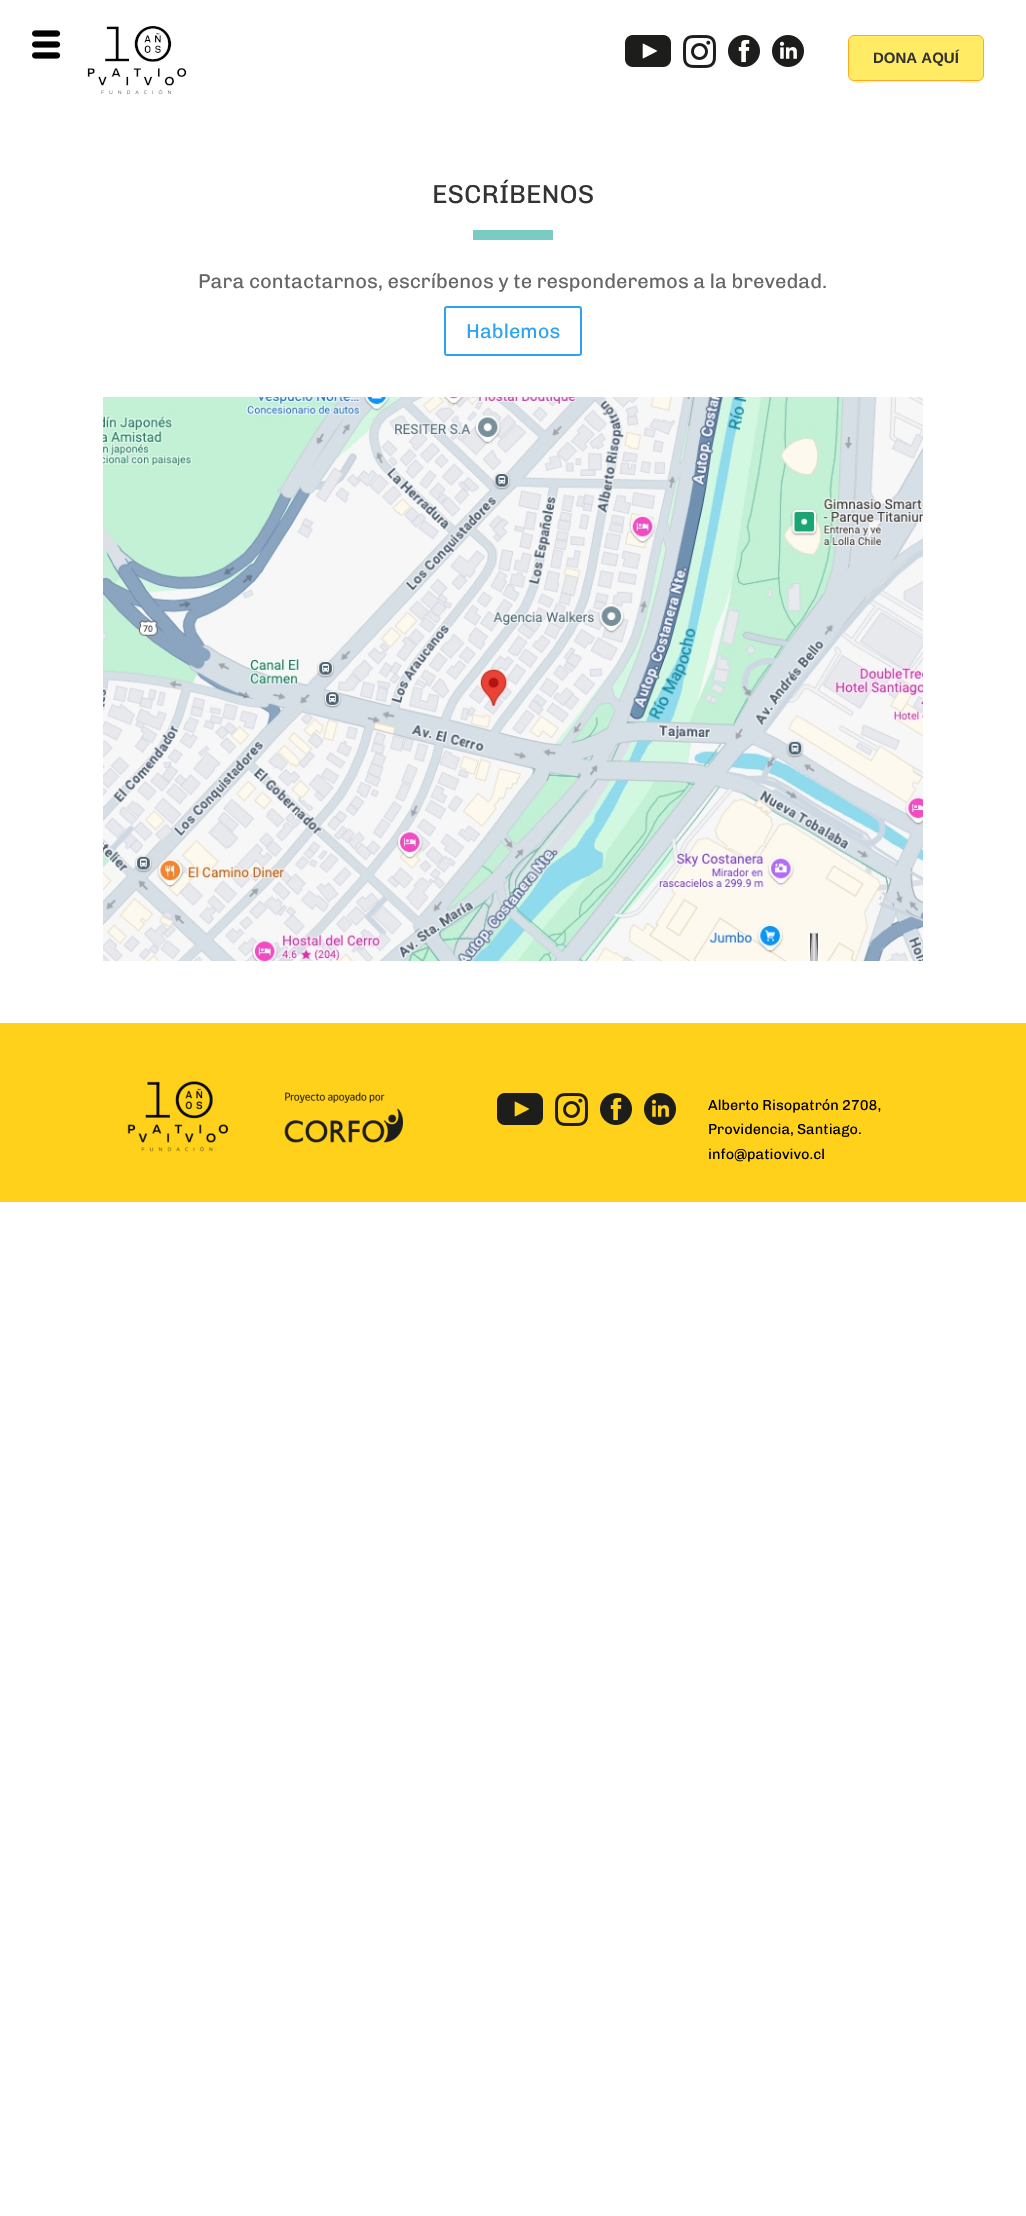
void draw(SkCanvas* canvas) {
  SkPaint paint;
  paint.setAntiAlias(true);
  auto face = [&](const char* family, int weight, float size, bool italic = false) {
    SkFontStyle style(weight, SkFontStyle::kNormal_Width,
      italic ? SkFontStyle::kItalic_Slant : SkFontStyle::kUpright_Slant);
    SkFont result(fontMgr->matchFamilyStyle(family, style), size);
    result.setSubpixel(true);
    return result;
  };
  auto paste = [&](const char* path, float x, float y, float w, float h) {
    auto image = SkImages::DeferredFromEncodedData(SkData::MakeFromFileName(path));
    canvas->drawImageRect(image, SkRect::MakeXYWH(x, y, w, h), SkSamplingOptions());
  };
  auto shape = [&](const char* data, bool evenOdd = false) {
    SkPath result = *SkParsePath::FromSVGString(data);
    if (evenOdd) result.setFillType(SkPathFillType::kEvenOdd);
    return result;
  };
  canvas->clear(0xffffffff);
  paste("img/1.png", 625, 35, 46, 32);
  paste("img/2.png", 683, 35, 33, 33);
  paste("img/3.png", 728, 35, 32, 32);
  paste("img/4.png", 772, 35, 32, 32);
  paint.setColor(0xfffff6af);
  canvas->drawPath(shape("M848 75C848 87 870 82 875 82H957C962 82 984 87 984 75C984 78 981 81 978 81H854C851 81 848 78 848 75Z"), paint);
  paint.setColor(0xffffec64);
  canvas->drawRoundRect(SkRect::MakeXYWH(848.5f, 35.5f, 135, 45), 5.5f, 5.5f, paint);
  paint.setStroke(true);
  paint.setStrokeWidth(1);
  paint.setColor(0xffffaa22);
  canvas->drawRoundRect(SkRect::MakeXYWH(848.5f, 35.5f, 135, 45), 5.5f, 5.5f, paint);
  paste("img/5.png", 32, 30, 29, 29);
  paste("img/6.png", 87, 26, 100, 69);
  paint.setStroke(false);
  paint.setColor(0xff79cbc3);
  canvas->drawRect(SkRect::MakeXYWH(473, 230, 80, 10), paint);
  paint.setStroke(true);
  paint.setStrokeWidth(2);
  paint.setColor(0xff2ea3f2);
  canvas->drawRoundRect(SkRect::MakeXYWH(445, 307, 136, 48), 2, 2, paint);
  paste("img/7.png", 103, 397, 820, 564);
  paint.setStroke(false);
  paint.setColor(0xffffd11b);
  canvas->drawRect(SkRect::MakeXYWH(0, 1023, 1026, 179), paint);
  paste("img/8.png", 127, 1081, 276, 71);
  paste("img/9.png", 497, 1093, 46, 32);
  paste("img/10.png", 555, 1093, 33, 33);
  paste("img/11.png", 600, 1093, 32, 32);
  paste("img/12.png", 644, 1093, 32, 32);
  auto f0 = face("Liberation Sans", 700, 15);
  paint.setColor(0xff333333);
  canvas->drawString("DONA AQUÍ", 873, 63, f0, paint);
  auto f1 = face("Chivo", 500, 26);
  canvas->drawString("ESCRÍBENOS", 432, 203, f1, paint);
  auto f2 = face("Chivo", 500, 20);
  paint.setColor(0xff666666);
  canvas->drawString("Para contactarnos, escríbenos y te responderemos a la brevedad.", 198, 288, f2, paint);
  paint.setColor(0xff2ea3f2);
  canvas->drawString("Hablemos", 466, 338, f2, paint);
  auto f3 = face("Chivo", 500, 14.4f);
  paint.setColor(0xff000000);
  {
    const struct { const char* s; float x, y; } items[] = {
      {"Alberto Risopatrón 2708,", 708, 1110},
      {"Providencia, Santiago.", 708, 1134},
      {"info@patiovivo.cl", 708, 1159},
    };
    for (auto [s, x, y] : items) {
      canvas->drawString(s, x, y, f3, paint);
    }
  }
}
